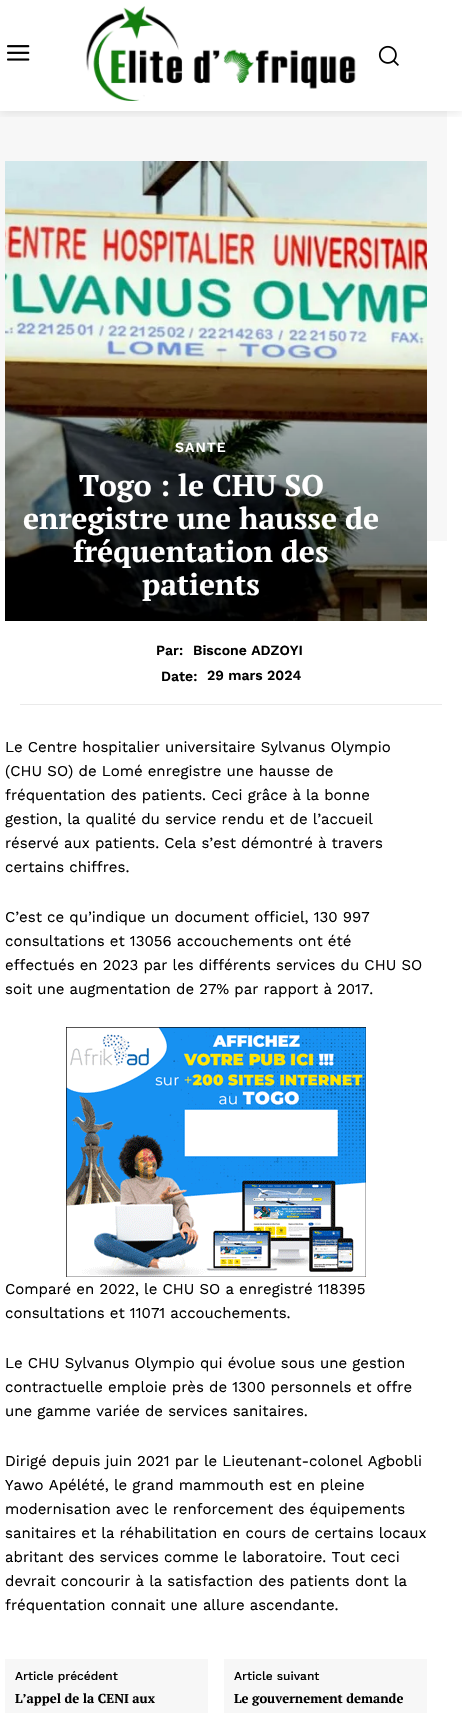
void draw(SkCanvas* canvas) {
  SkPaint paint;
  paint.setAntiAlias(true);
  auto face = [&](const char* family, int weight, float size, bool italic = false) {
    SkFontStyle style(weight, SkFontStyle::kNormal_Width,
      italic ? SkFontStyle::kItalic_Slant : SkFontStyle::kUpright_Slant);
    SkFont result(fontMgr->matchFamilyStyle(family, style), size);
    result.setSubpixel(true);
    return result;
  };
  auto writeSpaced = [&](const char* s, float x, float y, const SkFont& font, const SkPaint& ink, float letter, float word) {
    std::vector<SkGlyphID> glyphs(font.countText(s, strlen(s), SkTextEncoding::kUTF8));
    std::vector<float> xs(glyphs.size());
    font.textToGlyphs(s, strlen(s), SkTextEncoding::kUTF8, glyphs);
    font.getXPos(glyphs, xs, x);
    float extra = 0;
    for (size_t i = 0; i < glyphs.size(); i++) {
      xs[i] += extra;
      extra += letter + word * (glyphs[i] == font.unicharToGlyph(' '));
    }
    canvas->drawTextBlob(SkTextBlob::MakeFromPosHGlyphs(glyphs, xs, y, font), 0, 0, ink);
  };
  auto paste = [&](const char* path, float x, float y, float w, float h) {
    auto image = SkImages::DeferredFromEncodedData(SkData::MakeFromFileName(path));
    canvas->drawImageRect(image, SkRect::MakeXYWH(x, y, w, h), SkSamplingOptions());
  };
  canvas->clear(0xffffffff);
  paste("img/1.png", 7, 45, 23, 16);
  paste("img/2.png", 86, 6, 270, 95);
  paste("img/3.png", 378, 45, 21, 21);
  paint.setColor(0xfff7f7f7);
  canvas->drawRect(SkRect::MakeXYWH(0, 111, 447, 430), paint);
  canvas->save();
  canvas->clipRect(SkRect::MakeXYWH(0, 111, 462, 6));
  paint.setColor(0x17000000);
  paint.setMaskFilter(SkMaskFilter::MakeBlur(kNormal_SkBlurStyle, 5));
  canvas->drawRect(SkRect::MakeXYWH(0, 2, 462, 111), paint);
  paint.setMaskFilter(nullptr);
  canvas->restore();
  paste("img/4.png", 5, 161, 422, 460);
  paint.setColor(0xffeaeaea);
  canvas->drawRect(SkRect::MakeXYWH(20, 704, 422, 1), paint);
  paste("img/5.png", 66, 1027, 300, 250);
  paint.setColor(0xfff7f7f7);
  canvas->drawRect(SkRect::MakeXYWH(5, 1659, 203, 54), paint);
  canvas->drawRect(SkRect::MakeXYWH(224, 1659, 203, 54), paint);
  auto f0 = face("Work Sans", 600, 14);
  paint.setColor(0xffffffff);
  writeSpaced("SANTE", 175, 452, f0, paint, 1, 0);
  auto f1 = face("PT Serif", 700, 30);
  {
    const struct { const char* s; float x, y; } items[] = {
      {"Togo : le CHU SO", 79, 496},
      {"enregistre une hausse de", 23, 529},
      {"fréquentation des", 73, 562},
      {"patients", 142, 595},
    };
    for (auto [s, x, y] : items) {
      canvas->drawString(s, x, y, f1, paint);
    }
  }
  paint.setColor(0xff000000);
  {
    const struct { const char* s; float x, y; } items[] = {
      {"Par:", 156, 655},
      {"Biscone ADZOYI", 193, 655},
      {"Date:", 161, 681},
      {"29 mars 2024", 207, 680},
    };
    for (auto [s, x, y] : items) {
      canvas->drawString(s, x, y, f0, paint);
    }
  }
  auto f2 = face("Work Sans", 400, 15);
  {
    const struct { const char* s; float x, y; } items[] = {
      {"Le Centre hospitalier universitaire Sylvanus Olympio", 5, 752},
      {"(CHU SO) de Lomé enregistre une hausse de", 5, 776},
      {"fréquentation des patients. Ceci grâce à la bonne", 5, 800},
      {"gestion, la qualité du service rendu et de l’accueil", 5, 824},
      {"réservé aux patients. Cela s’est démontré à travers", 5, 848},
      {"certains chiffres.", 5, 872},
      {"C’est ce qu’indique un document officiel, 130  997", 5, 922},
      {"consultations et 13 056 accouchements ont été", 5, 946},
      {"effectués en 2023 par les différents services du CHU SO", 5, 970},
      {"soit une augmentation de 27% par rapport à 2017.", 5, 994},
      {"Comparé en 2022, le CHU SO a enregistré 118 395", 5, 1294},
      {"consultations et 11 071 accouchements.", 5, 1318},
      {"Le CHU Sylvanus Olympio qui évolue sous une gestion", 5, 1368},
      {"contractuelle emploie près de 1300 personnels et offre", 5, 1392},
      {"une gamme variée de services sanitaires.", 5, 1416},
      {"Dirigé depuis juin 2021 par le Lieutenant-colonel Agbobli", 5, 1466},
      {"Yawo Apélété, le grand mammouth est en pleine", 5, 1490},
      {"modernisation avec le renforcement des équipements", 5, 1514},
      {"sanitaires et la réhabilitation en cours de certains locaux", 5, 1538},
      {"abritant des services comme le laboratoire. Tout ceci", 5, 1562},
      {"devrait concourir à la satisfaction des patients dont la", 5, 1586},
      {"fréquentation connait une allure ascendante.", 5, 1610},
    };
    for (auto [s, x, y] : items) {
      canvas->drawString(s, x, y, f2, paint);
    }
  }
  auto f3 = face("Work Sans", 500, 12);
  canvas->drawString("Article précédent", 15, 1680, f3, paint);
  auto f4 = face("PT Serif", 700, 13);
  canvas->drawString("L’appel de la CENI aux", 15, 1703, f4, paint);
  canvas->drawString("Article suivant", 234, 1680, f3, paint);
  canvas->drawString("Le gouvernement demande", 234, 1703, f4, paint);
}
